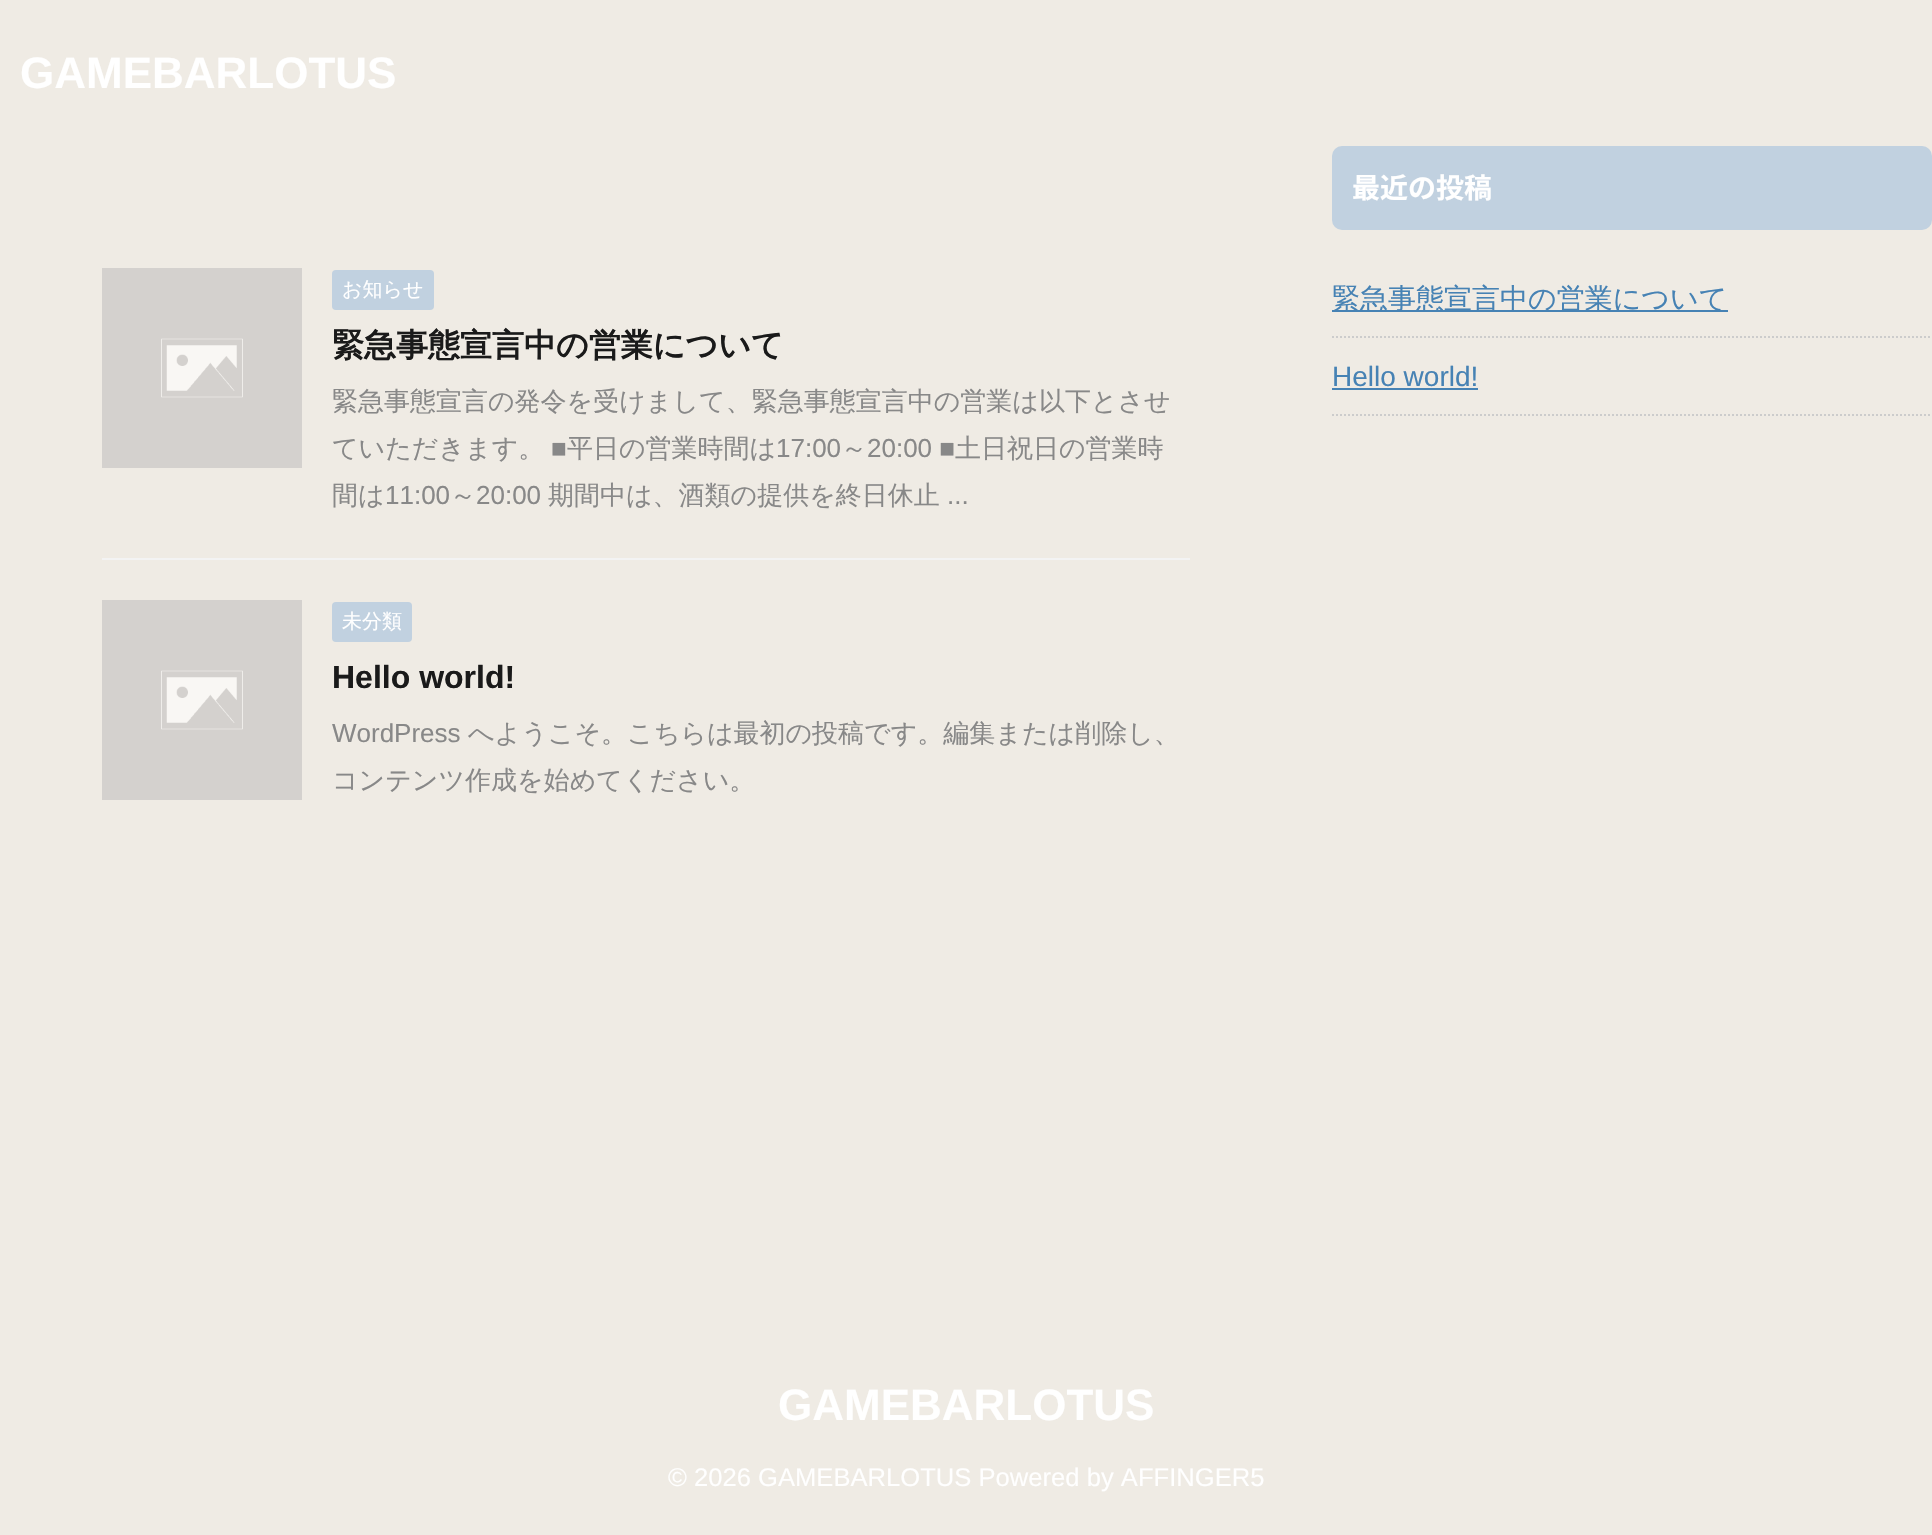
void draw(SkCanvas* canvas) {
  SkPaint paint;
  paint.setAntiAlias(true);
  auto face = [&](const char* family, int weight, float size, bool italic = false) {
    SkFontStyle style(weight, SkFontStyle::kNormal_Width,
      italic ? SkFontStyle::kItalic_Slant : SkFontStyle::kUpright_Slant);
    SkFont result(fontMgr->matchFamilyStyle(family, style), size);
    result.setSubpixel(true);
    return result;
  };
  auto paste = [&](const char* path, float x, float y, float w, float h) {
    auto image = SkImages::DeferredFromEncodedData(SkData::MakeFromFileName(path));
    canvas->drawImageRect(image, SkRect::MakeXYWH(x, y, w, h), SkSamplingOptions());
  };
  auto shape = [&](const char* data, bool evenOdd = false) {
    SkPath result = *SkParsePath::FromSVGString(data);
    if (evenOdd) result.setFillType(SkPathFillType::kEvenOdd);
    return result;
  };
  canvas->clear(0xffefebe4);
  paint.setColor(0xfff3f3f3);
  canvas->drawRect(SkRect::MakeXYWH(102, 558, 1088, 2), paint);
  paste("img/1.png", 102, 268, 200, 200);
  paint.setColor(0xffc1d1e0);
  canvas->drawRoundRect(SkRect::MakeXYWH(332, 270, 102, 40), 4, 4, paint);
  paste("img/1.png", 102, 600, 200, 200);
  canvas->drawRoundRect(SkRect::MakeXYWH(332, 602, 80, 40), 4, 4, paint);
  canvas->drawRoundRect(SkRect::MakeXYWH(1332, 146, 600, 84), 10, 10, paint);
  paint.setStroke(true);
  paint.setStrokeWidth(2);
  paint.setColor(0xffcccccc);
  paint.setPathEffect(SkDashPathEffect::Make({{2, 2}}, 0));
  canvas->drawPath(shape("M1332 337H1932"), paint);
  paint.setPathEffect(nullptr);
  paint.setStroke(false);
  paint.setColor(0xff4682b4);
  canvas->drawRect(SkRect::MakeXYWH(1332, 310, 396, 2), paint);
  paint.setStroke(true);
  paint.setColor(0xffcccccc);
  paint.setPathEffect(SkDashPathEffect::Make({{2, 2}}, 0));
  canvas->drawPath(shape("M1332 415H1932"), paint);
  paint.setPathEffect(nullptr);
  paint.setStroke(false);
  paint.setColor(0xff4682b4);
  canvas->drawRect(SkRect::MakeXYWH(1332, 388, 146, 2), paint);
  auto f0 = face("Liberation Sans", 700, 44);
  paint.setColor(0xffffffff);
  canvas->drawString("GAMEBARLOTUS", 20, 88, f0, paint);
  auto f1 = face("WenQuanYi Zen Hei", 500, 20);
  canvas->drawString("お知らせ", 342, 296, f1, paint);
  auto f2 = face("WenQuanYi Zen Hei", 700, 32);
  paint.setColor(0xff1a1a1a);
  canvas->drawString("緊急事態宣言中の営業について", 332, 356, f2, paint);
  auto f3 = face("WenQuanYi Zen Hei", 500, 26);
  paint.setColor(0xff888888);
  canvas->drawString("緊急事態宣言の発令を受けまして、緊急事態宣言中の営業は以下とさせ", 332, 410, f3, paint);
  canvas->drawString("ていただきます。", 332, 457, f3, paint);
  auto f4 = face("Liberation Sans", 400, 26);
  canvas->drawString("■", 551, 457, f4, paint);
  canvas->drawString("平日の営業時間は", 567, 457, f3, paint);
  canvas->drawString("17:00", 776, 457, f4, paint);
  canvas->drawString("～", 841, 457, f3, paint);
  canvas->drawString("20:00 ■", 867, 457, f4, paint);
  canvas->drawString("土日祝日の営業時", 955, 457, f3, paint);
  canvas->drawString("間は", 332, 504, f3, paint);
  canvas->drawString("11:00", 385, 504, f4, paint);
  canvas->drawString("～", 450, 504, f3, paint);
  canvas->drawString("20:00", 476, 504, f4, paint);
  canvas->drawString("期間中は、酒類の提供を終日休止", 548, 504, f3, paint);
  canvas->drawString("...", 947, 504, f4, paint);
  paint.setColor(0xffffffff);
  canvas->drawString("未分類", 342, 628, f1, paint);
  auto f5 = face("Liberation Sans", 700, 32);
  paint.setColor(0xff1a1a1a);
  canvas->drawString("Hello world!", 332, 688, f5, paint);
  paint.setColor(0xff888888);
  canvas->drawString("WordPress", 332, 742, f4, paint);
  canvas->drawString("へようこそ。こちらは最初の投稿です。編集または削除し、", 468, 742, f3, paint);
  canvas->drawString("コンテンツ作成を始めてください。", 332, 789, f3, paint);
  auto f6 = face("Noto Sans JP", 700, 28);
  paint.setColor(0xffffffff);
  canvas->drawString("最近の投稿", 1352, 198, f6, paint);
  auto f7 = face("WenQuanYi Zen Hei", 500, 28);
  paint.setColor(0xff4682b4);
  canvas->drawString("緊急事態宣言中の営業について", 1332, 308, f7, paint);
  auto f8 = face("Liberation Sans", 400, 28);
  canvas->drawString("Hello world!", 1332, 386, f8, paint);
  paint.setColor(0xffffffff);
  canvas->drawString("GAMEBARLOTUS", 778, 1420, f0, paint);
  auto f9 = face("Liberation Sans", 400, 25.6f);
  canvas->drawString("© 2026 GAMEBARLOTUS Powered by AFFINGER5", 668, 1486, f9, paint);
}
